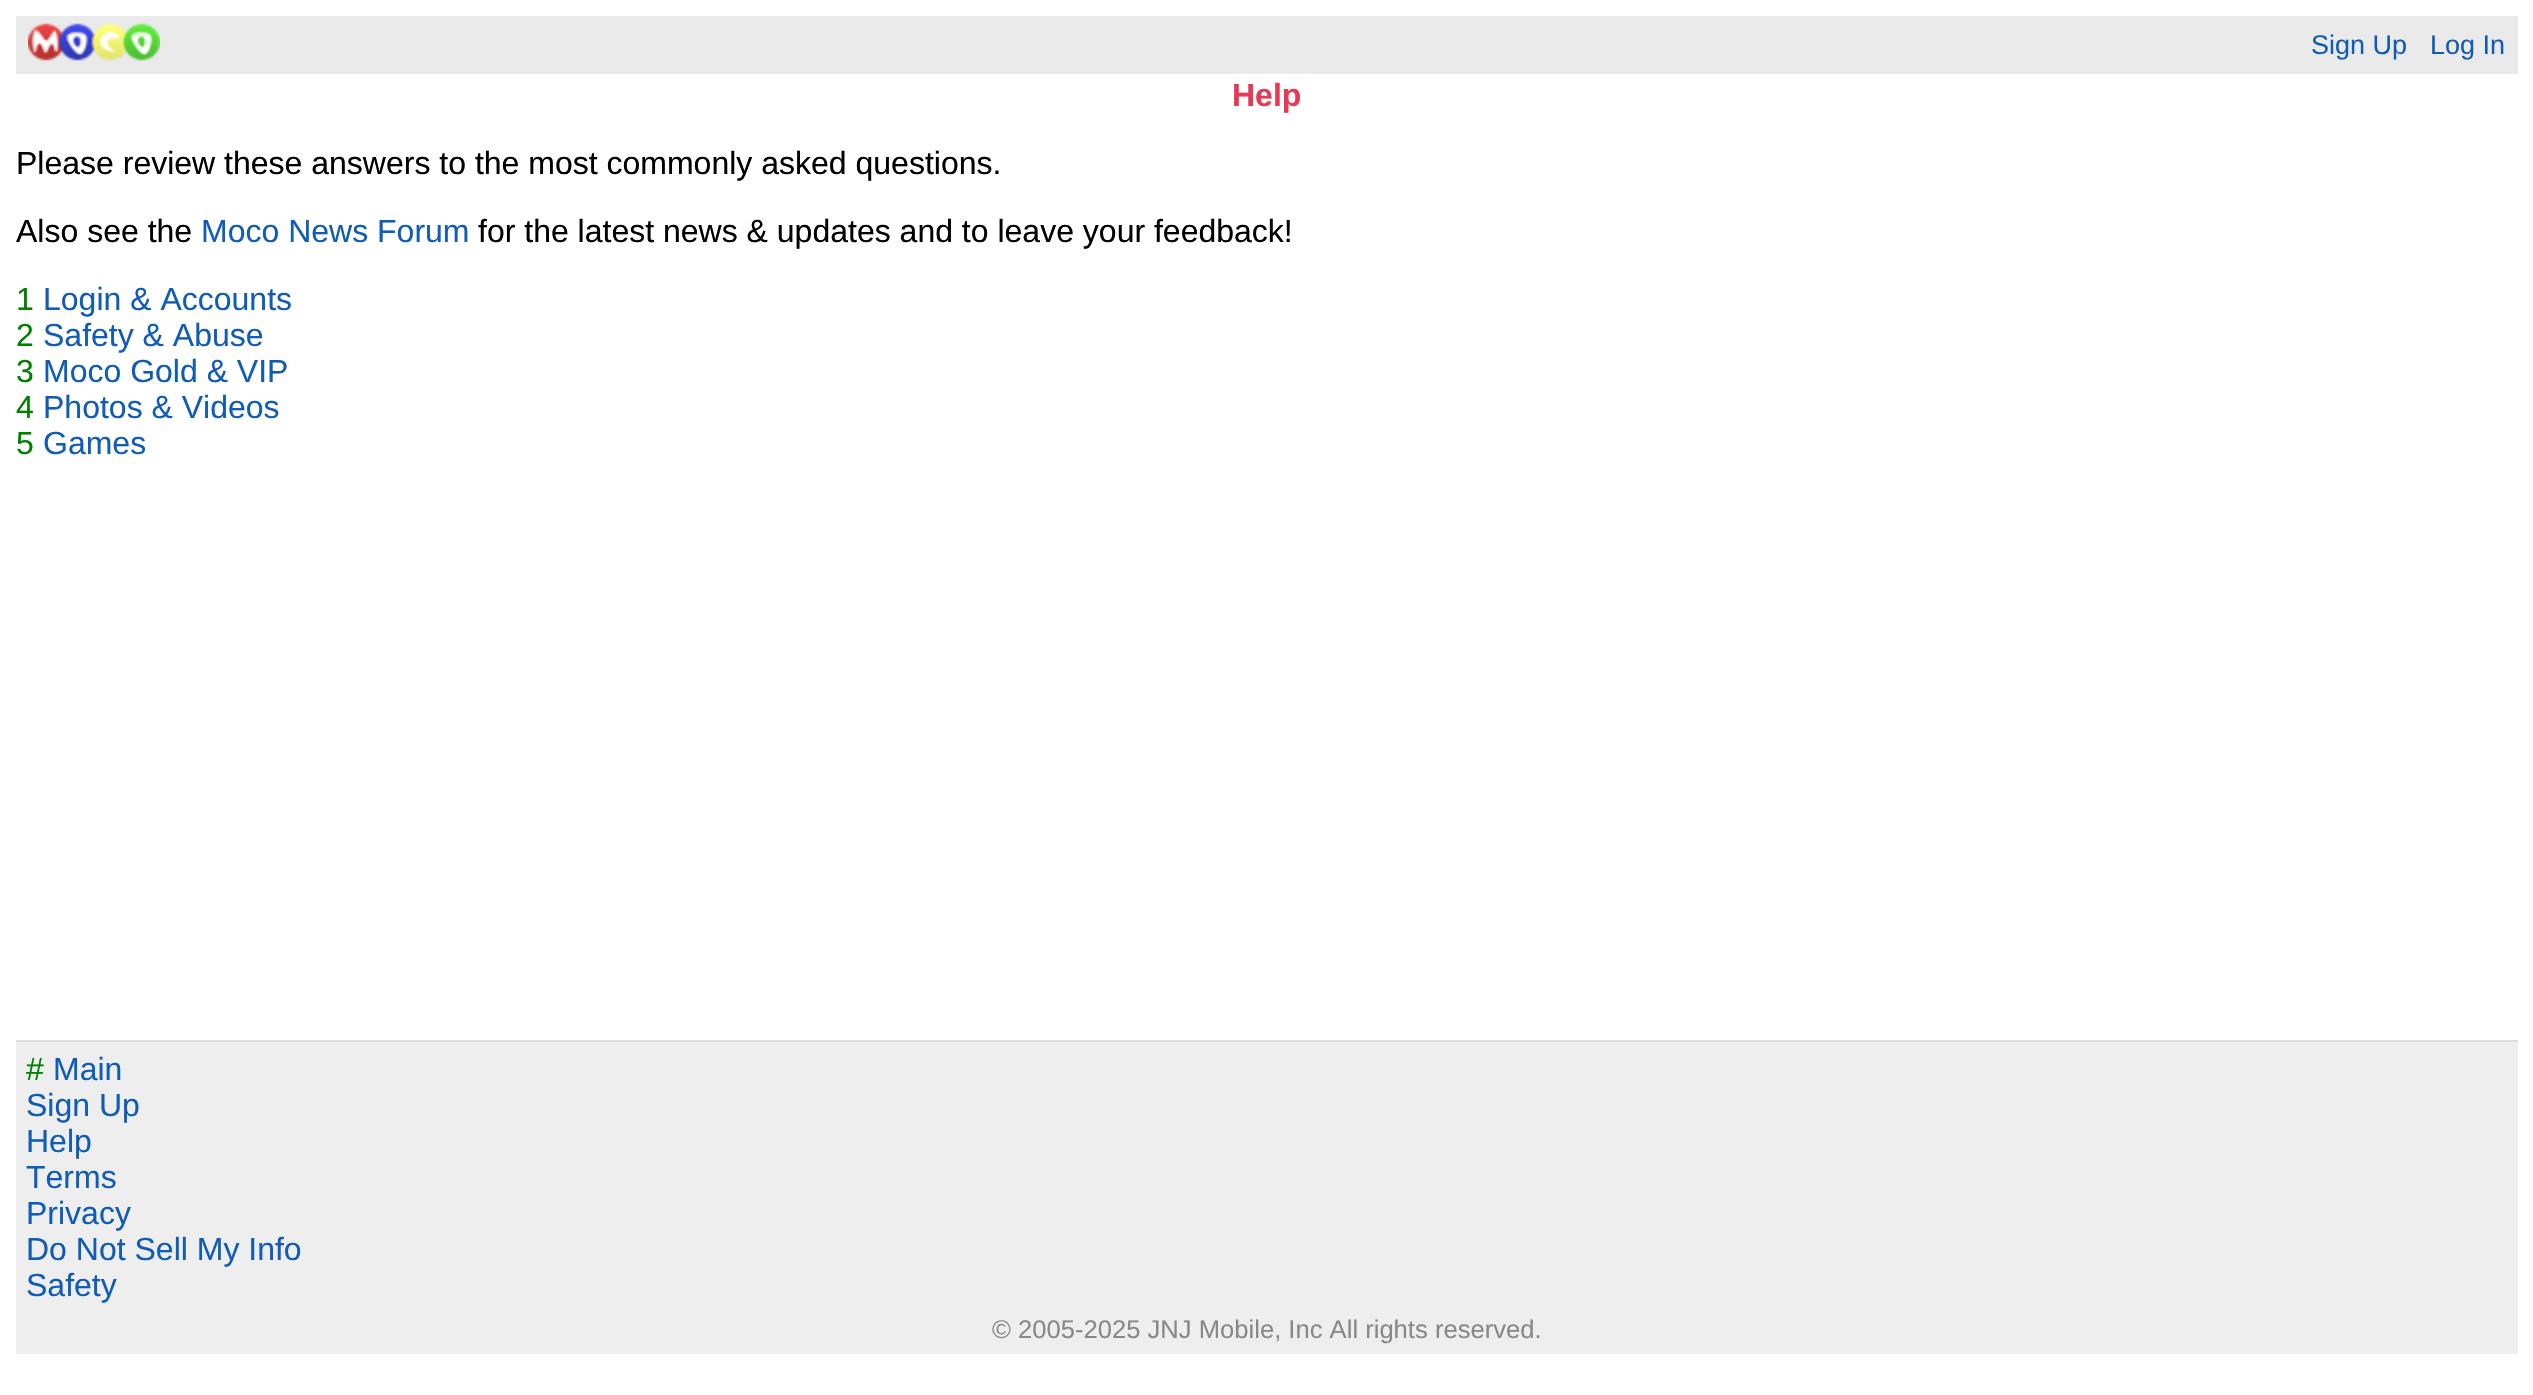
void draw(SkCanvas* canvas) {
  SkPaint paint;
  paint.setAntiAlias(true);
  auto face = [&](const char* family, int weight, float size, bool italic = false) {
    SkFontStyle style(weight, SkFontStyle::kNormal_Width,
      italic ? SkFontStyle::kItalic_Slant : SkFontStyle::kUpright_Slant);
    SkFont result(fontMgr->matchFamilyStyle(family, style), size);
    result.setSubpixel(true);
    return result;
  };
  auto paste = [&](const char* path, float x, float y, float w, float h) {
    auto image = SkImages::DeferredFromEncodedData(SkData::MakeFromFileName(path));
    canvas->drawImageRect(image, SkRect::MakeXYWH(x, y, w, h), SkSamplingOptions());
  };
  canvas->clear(0xffffffff);
  paint.setColor(0xffeaeaea);
  canvas->drawRect(SkRect::MakeXYWH(16, 16, 2502, 58), paint);
  paste("img/1.png", 28, 23, 132, 38);
  paint.setColor(0xffeeeeee);
  canvas->drawRect(SkRect::MakeXYWH(16, 1042, 2502, 312), paint);
  paint.setColor(0xffdddddd);
  canvas->drawRect(SkRect::MakeXYWH(16, 1040, 2502, 2), paint);
  auto f0 = face("Liberation Sans", 400, 27);
  paint.setColor(0xff105cb6);
  canvas->drawString("Sign Up", 2311, 54, f0, paint);
  canvas->drawString("Log In", 2430, 54, f0, paint);
  auto f1 = face("Liberation Sans", 700, 32);
  paint.setColor(0xffe63955);
  canvas->drawString("Help", 1232, 106, f1, paint);
  auto f2 = face("Liberation Sans", 400, 32);
  paint.setColor(0xff000000);
  canvas->drawString("Please review these answers to the most commonly asked questions.", 16, 174, f2, paint);
  canvas->drawString("Also see the", 16, 242, f2, paint);
  paint.setColor(0xff105cb6);
  canvas->drawString("Moco News Forum", 201, 242, f2, paint);
  paint.setColor(0xff000000);
  canvas->drawString("for the latest news & updates and to leave your feedback!", 478, 242, f2, paint);
  paint.setColor(0xff008000);
  canvas->drawString("1", 16, 310, f2, paint);
  paint.setColor(0xff105cb6);
  canvas->drawString("Login & Accounts", 43, 310, f2, paint);
  paint.setColor(0xff008000);
  canvas->drawString("2", 16, 346, f2, paint);
  paint.setColor(0xff105cb6);
  canvas->drawString("Safety & Abuse", 43, 346, f2, paint);
  paint.setColor(0xff008000);
  canvas->drawString("3", 16, 382, f2, paint);
  paint.setColor(0xff105cb6);
  canvas->drawString("Moco Gold & VIP", 43, 382, f2, paint);
  paint.setColor(0xff008000);
  canvas->drawString("4", 16, 418, f2, paint);
  paint.setColor(0xff105cb6);
  canvas->drawString("Photos & Videos", 43, 418, f2, paint);
  paint.setColor(0xff008000);
  canvas->drawString("5", 16, 454, f2, paint);
  paint.setColor(0xff105cb6);
  canvas->drawString("Games", 43, 454, f2, paint);
  paint.setColor(0xff008000);
  canvas->drawString("#", 26, 1080, f2, paint);
  paint.setColor(0xff105cb6);
  {
    const struct { const char* s; float x, y; } items[] = {
      {"Main", 53, 1080},
      {"Sign Up", 26, 1116},
      {"Help", 26, 1152},
      {"Terms", 26, 1188},
      {"Privacy", 26, 1224},
      {"Do Not Sell My Info", 26, 1260},
      {"Safety", 26, 1296},
    };
    for (auto [s, x, y] : items) {
      canvas->drawString(s, x, y, f2, paint);
    }
  }
  auto f3 = face("Liberation Sans", 400, 25.6f);
  paint.setColor(0xff888888);
  canvas->drawString("© 2005-2025 JNJ Mobile, Inc All rights reserved.", 992, 1338, f3, paint);
}
